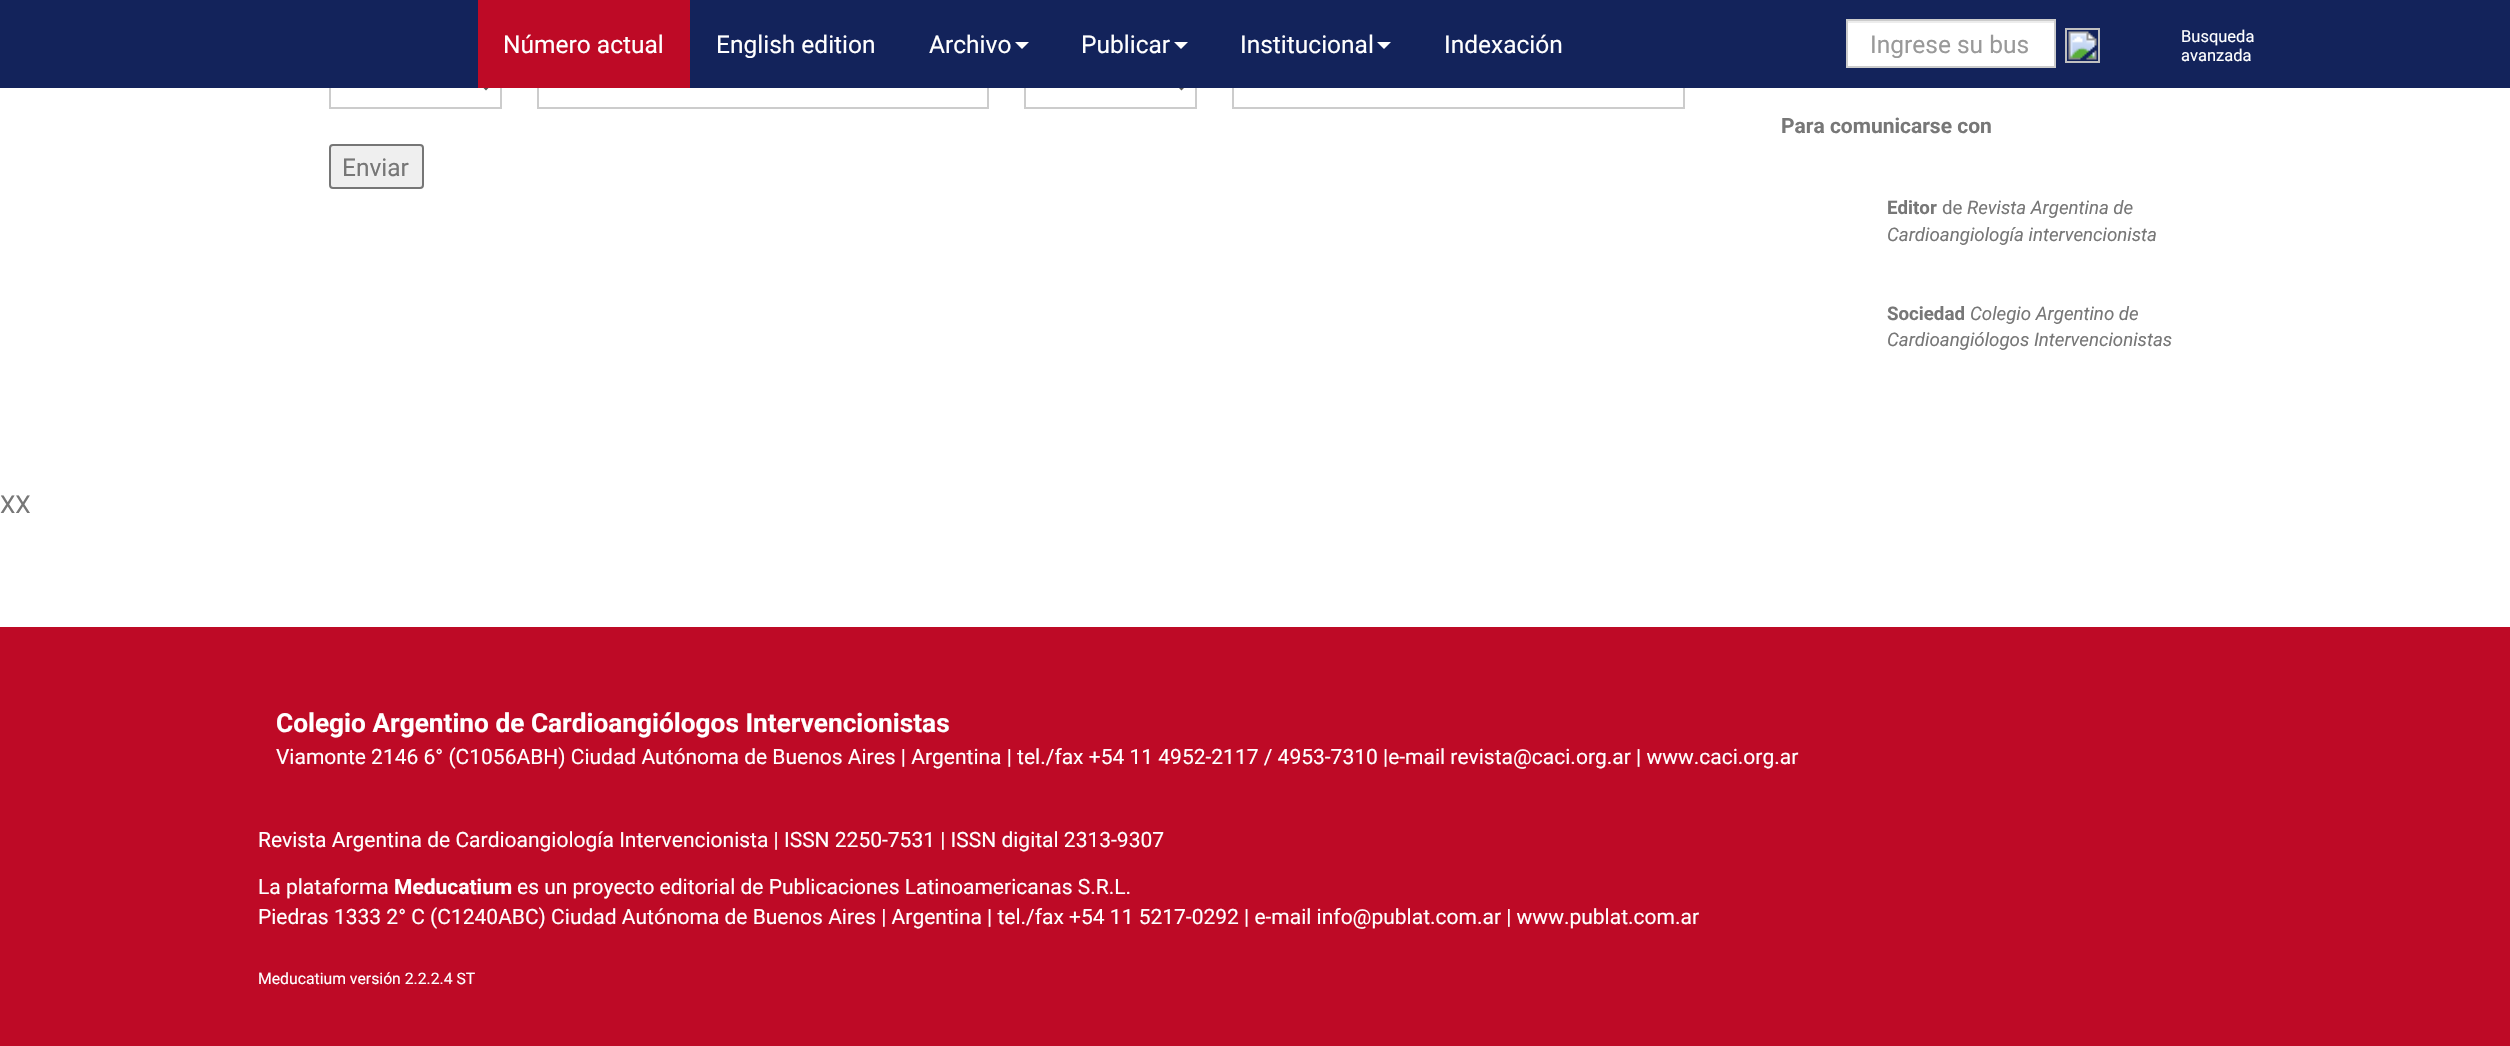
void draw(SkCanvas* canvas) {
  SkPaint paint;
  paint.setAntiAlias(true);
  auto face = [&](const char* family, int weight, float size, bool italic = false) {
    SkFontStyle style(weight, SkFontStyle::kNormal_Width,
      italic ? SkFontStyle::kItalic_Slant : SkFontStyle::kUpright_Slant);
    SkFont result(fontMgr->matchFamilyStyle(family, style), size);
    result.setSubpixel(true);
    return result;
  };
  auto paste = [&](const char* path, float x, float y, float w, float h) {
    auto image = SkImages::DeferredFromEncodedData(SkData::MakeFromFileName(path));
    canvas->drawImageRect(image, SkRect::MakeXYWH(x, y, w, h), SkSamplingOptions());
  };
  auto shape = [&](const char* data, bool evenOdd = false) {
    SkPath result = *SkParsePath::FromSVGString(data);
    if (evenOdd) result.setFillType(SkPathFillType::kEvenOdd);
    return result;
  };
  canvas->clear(0xffffffff);
  paint.setStroke(true);
  paint.setStrokeWidth(2);
  paint.setColor(0xffcccccc);
  canvas->drawRect(SkRect::MakeXYWH(330, 61, 171, 47), paint);
  paint.setStrokeWidth(3.5f);
  paint.setColor(0xff555555);
  canvas->drawPath(shape("M479 81L486 88L493 81"), paint);
  paint.setStrokeWidth(2);
  paint.setColor(0xffcccccc);
  canvas->drawRect(SkRect::MakeXYWH(538, 61, 450, 47), paint);
  canvas->drawRect(SkRect::MakeXYWH(1025, 61, 171, 47), paint);
  paint.setStrokeWidth(3.5f);
  paint.setColor(0xff555555);
  canvas->drawPath(shape("M1174.5 81L1181.5 88L1188.5 81"), paint);
  paint.setStrokeWidth(2);
  paint.setColor(0xffcccccc);
  canvas->drawRect(SkRect::MakeXYWH(1233, 61, 451, 47), paint);
  paint.setStroke(false);
  paint.setColor(0xff13235b);
  canvas->drawRect(SkRect::MakeXYWH(0, 0, 2510, 88), paint);
  paint.setColor(0xffbe0a26);
  canvas->drawRect(SkRect::MakeXYWH(478, 0, 212, 88), paint);
  paint.setColor(0xffffffff);
  canvas->drawPath(shape("M1015 42H1029L1022 49Z"), paint);
  canvas->drawPath(shape("M1174 42H1188L1181 49Z"), paint);
  canvas->drawPath(shape("M1377 42H1391L1384 49Z"), paint);
  canvas->drawRect(SkRect::MakeXYWH(1848, 23, 206, 43), paint);
  paint.setColor(0xffececec);
  canvas->drawRect(SkRect::MakeXYWH(1848, 21, 207, 2), paint);
  paint.setStroke(true);
  paint.setColor(0xffcccccc);
  canvas->drawRect(SkRect::MakeXYWH(1847, 20, 208, 47), paint);
  paste("img/1.png", 2068, 31, 29, 29);
  paint.setColor(0xffc0c0c0);
  canvas->drawRect(SkRect::MakeXYWH(2066, 29, 33, 33), paint);
  paint.setStroke(false);
  paint.setColor(0xffefefef);
  canvas->drawRoundRect(SkRect::MakeXYWH(330, 145, 93, 43), 3, 3, paint);
  paint.setStroke(true);
  paint.setColor(0xff767676);
  canvas->drawRoundRect(SkRect::MakeXYWH(330, 145, 93, 43), 3, 3, paint);
  paint.setStroke(false);
  paint.setColor(0xffbe0a26);
  canvas->drawRect(SkRect::MakeXYWH(0, 627, 2510, 419), paint);
  auto f0 = face("Roboto", 400, 24.5f);
  paint.setColor(0xffffffff);
  {
    const struct { const char* s; float x, y; } items[] = {
      {"Número actual", 503, 53},
      {"English edition", 716, 53},
      {"Archivo", 929, 53},
      {"Publicar", 1081, 53},
      {"Institucional", 1240, 53},
      {"Indexación", 1444, 53},
    };
    for (auto [s, x, y] : items) {
      canvas->drawString(s, x, y, f0, paint);
    }
  }
  paint.setColor(0xff999999);
  canvas->drawString("Ingrese su bus", 1870, 53, f0, paint);
  auto f1 = face("Roboto", 400, 16.5f);
  paint.setColor(0xffffffff);
  canvas->drawString("Busqueda", 2181, 42, f1, paint);
  canvas->drawString("avanzada", 2181, 61, f1, paint);
  paint.setColor(0xff777777);
  canvas->drawString("Enviar", 342, 176, f0, paint);
  auto f2 = face("Roboto", 700, 21);
  canvas->drawString("Para comunicarse con", 1781, 133, f2, paint);
  auto f3 = face("Roboto", 700, 18.7f);
  canvas->drawString("Editor", 1887, 214, f3, paint);
  auto f4 = face("Roboto", 400, 18.7f);
  canvas->drawString("de", 1942, 214, f4, paint);
  auto f5 = face("Roboto", 400, 18.7f, true);
  canvas->drawString("Revista Argentina de", 1967, 214, f5, paint);
  canvas->drawString("Cardioangiología intervencionista", 1887, 241, f5, paint);
  canvas->drawString("Sociedad", 1887, 320, f3, paint);
  canvas->drawString("Colegio Argentino de", 1970, 320, f5, paint);
  canvas->drawString("Cardioangiólogos Intervencionistas", 1887, 346, f5, paint);
  canvas->drawString("XX", 0, 513, f0, paint);
  auto f6 = face("Roboto", 700, 26.25f);
  paint.setColor(0xffffffff);
  canvas->drawString("Colegio Argentino de Cardioangiólogos Intervencionistas", 276, 732, f6, paint);
  auto f7 = face("Roboto", 400, 21);
  {
    const struct { const char* s; float x, y; } items[] = {
      {"Viamonte 2146 6° (C1056ABH) Ciudad Autónoma de Buenos Aires | Argentina | tel./fax +54 11 4952-2117 / 4953-7310 |e-mail revista@caci.org.ar | www.caci.org.ar", 276, 764},
      {"Revista Argentina de Cardioangiología Intervencionista | ISSN 2250-7531 | ISSN digital 2313-9307", 258, 847},
      {"La plataforma", 258, 894},
    };
    for (auto [s, x, y] : items) {
      canvas->drawString(s, x, y, f7, paint);
    }
  }
  canvas->drawString("Meducatium", 394, 894, f2, paint);
  canvas->drawString("es un proyecto editorial de Publicaciones Latinoamericanas S.R.L.", 517, 894, f7, paint);
  canvas->drawString("Piedras 1333 2° C (C1240ABC) Ciudad Autónoma de Buenos Aires | Argentina | tel./fax +54 11 5217-0292 | e-mail info@publat.com.ar | www.publat.com.ar", 258, 924, f7, paint);
  auto f8 = face("Roboto", 400, 15.75f);
  canvas->drawString("Meducatium versión 2.2.2.4 ST", 258, 984, f8, paint);
}
